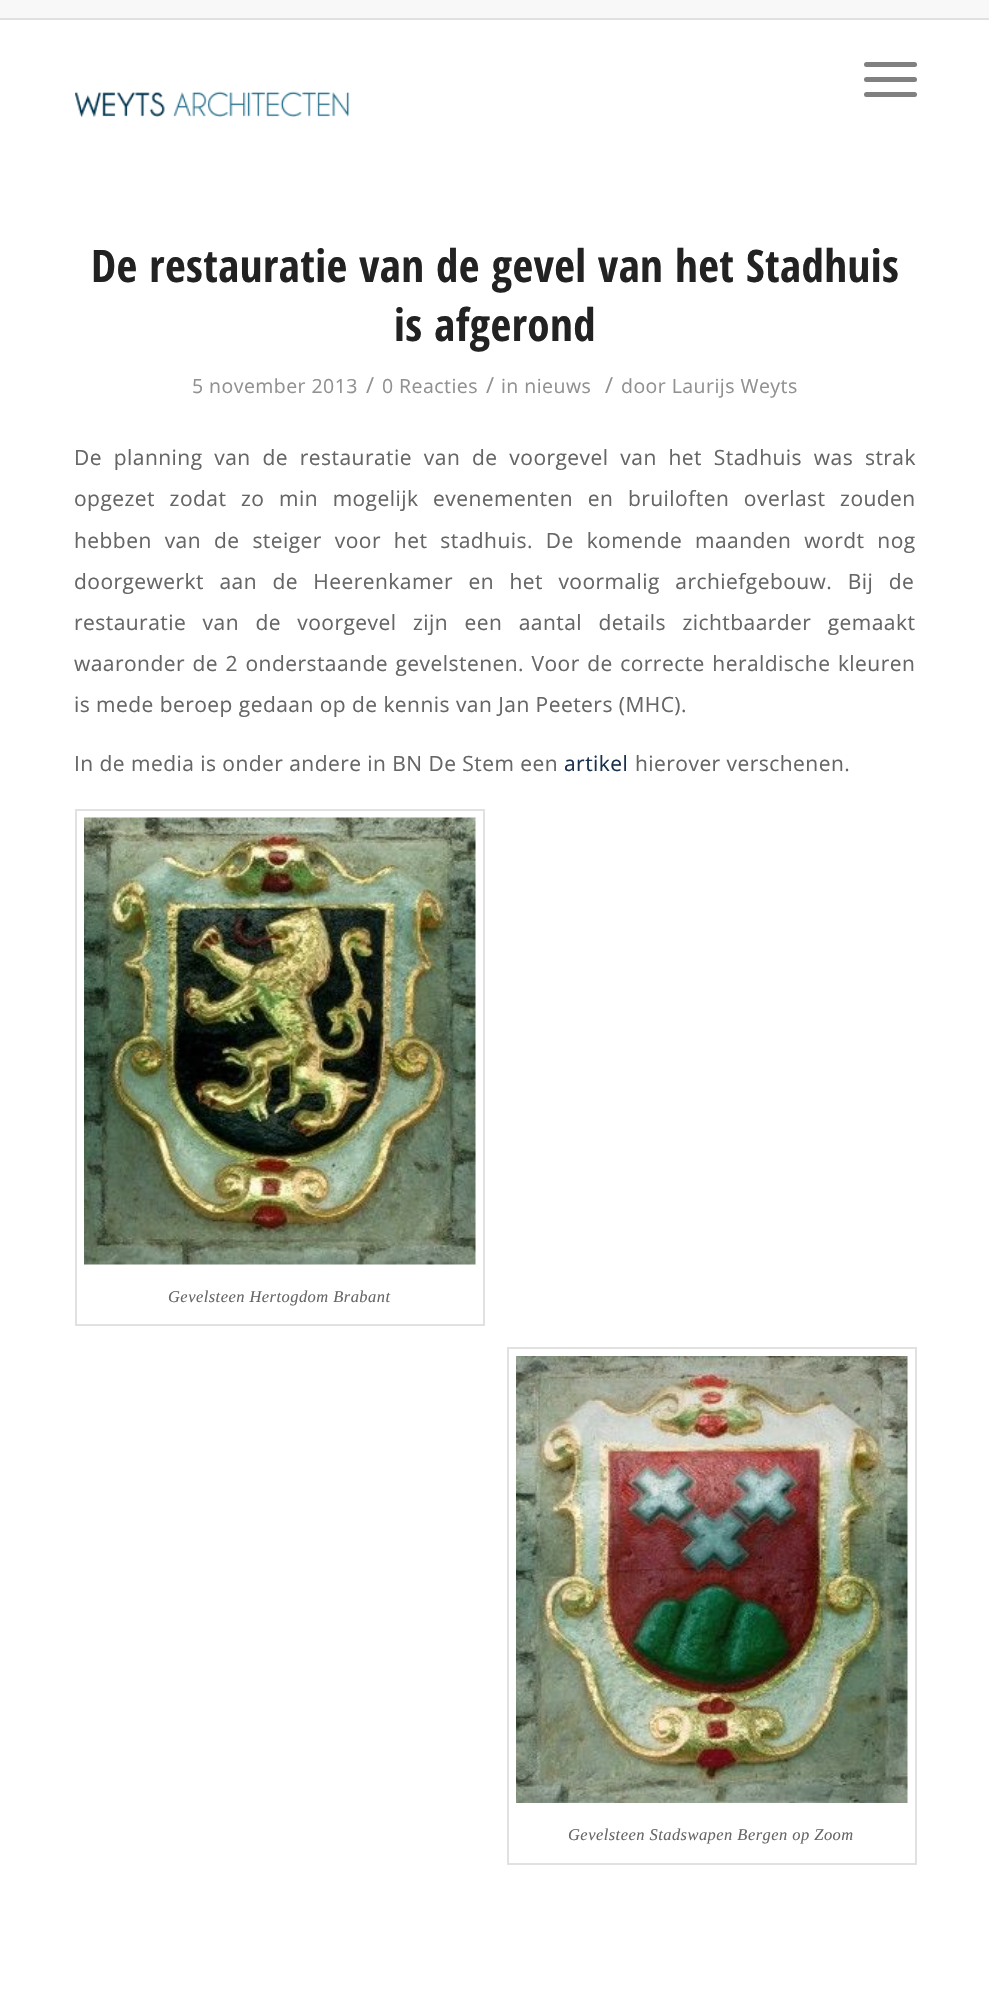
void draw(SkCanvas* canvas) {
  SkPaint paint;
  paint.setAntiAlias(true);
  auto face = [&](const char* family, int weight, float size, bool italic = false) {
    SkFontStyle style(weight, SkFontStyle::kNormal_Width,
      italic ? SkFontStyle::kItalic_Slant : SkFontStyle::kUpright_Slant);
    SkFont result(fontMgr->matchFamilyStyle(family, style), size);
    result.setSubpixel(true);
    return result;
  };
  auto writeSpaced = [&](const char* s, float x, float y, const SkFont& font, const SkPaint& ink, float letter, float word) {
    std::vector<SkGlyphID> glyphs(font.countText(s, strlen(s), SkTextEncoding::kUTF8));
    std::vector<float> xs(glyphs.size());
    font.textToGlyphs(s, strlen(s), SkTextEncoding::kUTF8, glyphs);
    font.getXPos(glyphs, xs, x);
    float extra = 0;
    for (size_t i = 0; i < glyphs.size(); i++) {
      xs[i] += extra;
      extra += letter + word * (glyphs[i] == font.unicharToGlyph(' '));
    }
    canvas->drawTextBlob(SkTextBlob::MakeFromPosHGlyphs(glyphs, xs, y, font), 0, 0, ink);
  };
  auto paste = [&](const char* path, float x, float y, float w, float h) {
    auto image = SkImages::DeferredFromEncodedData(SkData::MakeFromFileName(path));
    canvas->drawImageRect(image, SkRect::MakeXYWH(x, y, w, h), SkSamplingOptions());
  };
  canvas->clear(0xffffffff);
  paint.setColor(0xfff8f8f8);
  canvas->drawRect(SkRect::MakeXYWH(0, 0, 989, 18), paint);
  paint.setColor(0xffe1e1e1);
  canvas->drawRect(SkRect::MakeXYWH(0, 18, 989, 2), paint);
  paint.setColor(0xff808080);
  canvas->drawRoundRect(SkRect::MakeXYWH(864, 77, 53, 5), 2.5f, 2.5f, paint);
  canvas->drawRoundRect(SkRect::MakeXYWH(864, 62, 53, 5), 2.5f, 2.5f, paint);
  canvas->drawRoundRect(SkRect::MakeXYWH(864, 92, 53, 5), 2.5f, 2.5f, paint);
  paste("img/1.png", 75, 91, 275, 26);
  paint.setStroke(true);
  paint.setStrokeWidth(2);
  paint.setColor(0xffe1e1e1);
  canvas->drawRect(SkRect::MakeXYWH(76, 810, 408, 515), paint);
  paste("img/2.png", 84, 817, 392, 448);
  canvas->drawRect(SkRect::MakeXYWH(508, 1348, 408, 516), paint);
  paste("img/3.png", 516, 1356, 392, 447);
  auto f0 = face("Open Sans Condensed", 700, 45);
  paint.setStroke(false);
  paint.setColor(0xff222222);
  writeSpaced("De restauratie van de gevel van het Stadhuis", 91, 282, f0, paint, 0.45f, 0);
  writeSpaced("is afgerond", 394, 341, f0, paint, 0.45f, 0);
  auto f1 = face("Open Sans", 400, 19.5f);
  paint.setColor(0xff919191);
  writeSpaced("5 november 2013", 192, 393, f1, paint, 0.45f, 0);
  auto f2 = face("Open Sans", 400, 22);
  writeSpaced("/", 366, 393, f2, paint, 0.45f, 0);
  writeSpaced("0 Reacties", 382, 393, f1, paint, 0.45f, 0);
  writeSpaced("/", 486, 393, f2, paint, 0.45f, 0);
  writeSpaced("in nieuws", 501, 393, f1, paint, 0.45f, 0);
  writeSpaced("/", 605, 393, f2, paint, 0.45f, 0);
  writeSpaced("door Laurijs Weyts", 621, 393, f1, paint, 0.45f, 0);
  auto f3 = face("Open Sans", 400, 21);
  paint.setColor(0xff666666);
  writeSpaced("De planning van de restauratie van de voorgevel van het Stadhuis was strak", 74, 465, f3, paint, 0.45f, 5.9f);
  writeSpaced("opgezet zodat zo min mogelijk evenementen en bruiloften overlast zouden", 74, 506, f3, paint, 0.45f, 8.75f);
  writeSpaced("hebben van de steiger voor het stadhuis. De komende maanden wordt nog", 74, 548, f3, paint, 0.45f, 7);
  writeSpaced("doorgewerkt aan de Heerenkamer en het voormalig archiefgebouw. Bij de", 74, 589, f3, paint, 0.45f, 9.5f);
  writeSpaced("restauratie van de voorgevel zijn een aantal details zichtbaarder gemaakt", 74, 630, f3, paint, 0.45f, 10.5f);
  writeSpaced("waaronder de 2 onderstaande gevelstenen. Voor de correcte heraldische kleuren", 74, 671, f3, paint, 0.45f, 1.6f);
  writeSpaced("is mede beroep gedaan op de kennis van Jan Peeters (MHC).", 74, 712, f3, paint, 0.45f, 0);
  writeSpaced("In de media is onder andere in BN De Stem een", 74, 771, f3, paint, 0.45f, 0);
  paint.setColor(0xff18314c);
  writeSpaced("artikel", 564, 771, f3, paint, 0.45f, 0);
  paint.setColor(0xff666666);
  writeSpaced("hierover verschenen.", 635, 771, f3, paint, 0.45f, 0);
  auto f4 = face("Liberation Serif", 400, 16.5f, true);
  writeSpaced("Gevelsteen Hertogdom Brabant", 168, 1302, f4, paint, 0.45f, 0);
  writeSpaced("Gevelsteen Stadswapen Bergen op Zoom", 568, 1840, f4, paint, 0.45f, 0);
}
